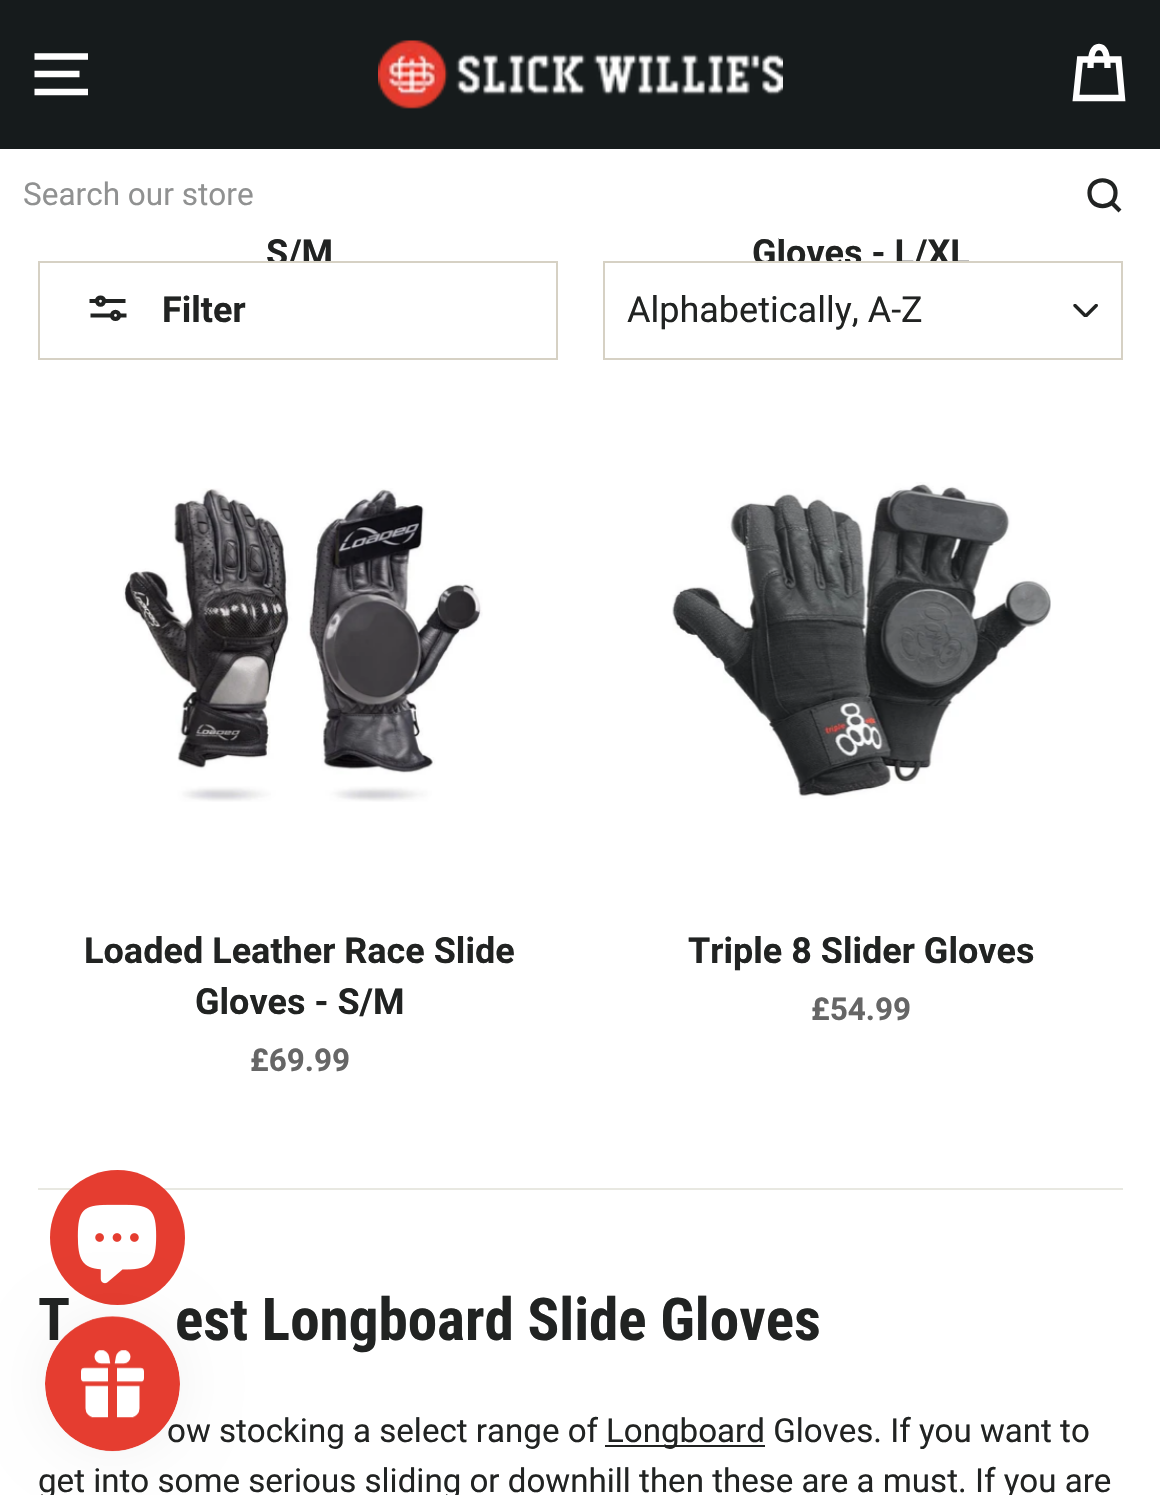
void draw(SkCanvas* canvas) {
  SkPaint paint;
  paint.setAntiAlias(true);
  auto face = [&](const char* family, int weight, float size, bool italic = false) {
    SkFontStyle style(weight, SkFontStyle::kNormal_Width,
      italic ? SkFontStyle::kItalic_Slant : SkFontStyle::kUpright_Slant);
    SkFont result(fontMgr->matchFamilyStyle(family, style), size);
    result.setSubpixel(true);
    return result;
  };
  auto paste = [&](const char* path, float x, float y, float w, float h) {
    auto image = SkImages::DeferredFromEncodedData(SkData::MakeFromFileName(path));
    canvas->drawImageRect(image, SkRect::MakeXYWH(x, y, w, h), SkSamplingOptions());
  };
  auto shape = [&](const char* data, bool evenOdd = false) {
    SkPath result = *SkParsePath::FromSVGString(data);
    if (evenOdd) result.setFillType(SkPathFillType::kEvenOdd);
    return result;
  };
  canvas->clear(0xffffffff);
  paint.setColor(0xff161b1c);
  canvas->drawRect(SkRect::MakeXYWH(0, 0, 1160, 149), paint);
  paint.setStroke(true);
  paint.setStrokeWidth(6.3f);
  paint.setColor(0xffffffff);
  canvas->drawPath(shape("M34.5 56.5H88M34.5 74H79.5M34.5 92H88"), paint);
  paste("img/1.png", 378, 40, 405, 69);
  canvas->drawPath(shape("M1090.5 68C1090.5 51.5 1094.5 47 1099 47C1103.5 47 1107.5 51.5 1107.5 68M1080 59.5H1118.5L1122 98H1076Z"), paint);
  paint.setStrokeWidth(4.2f);
  paint.setColor(0xff212322);
  canvas->drawPath(shape("M1115.5 193C1115.5 210.5 1089.5 210.5 1089.5 193C1089.5 176 1115.5 176 1115.5 193ZM1120 211L1111.5 202.5"), paint);
  paste("img/2.png", 123, 488, 360, 314);
  paste("img/3.png", 672, 482, 379, 317);
  paste("img/4.png", 1073, 304, 25, 13);
  paint.setStroke(false);
  paint.setColor(0xffe8e8e1);
  canvas->drawRect(SkRect::MakeXYWH(38, 1188, 1085, 2), paint);
  paint.setColor(0xff212322);
  canvas->drawRect(SkRect::MakeXYWH(605, 1445, 160, 2), paint);
  auto f0 = face("Roboto", 400, 31.5f);
  paint.setColor(0xff909191);
  canvas->drawString("Search our store", 23, 205, f0, paint);
  auto f1 = face("Roboto", 700, 36);
  paint.setColor(0xff212322);
  canvas->drawString("S/M", 266, 265, f1, paint);
  canvas->drawString("Gloves - L/XL", 752, 265, f1, paint);
  paint.setColor(0xffffffff);
  canvas->drawRect(SkRect::MakeXYWH(779, 238, 6, 1), paint);
  paint.setColor(0xff212322);
  canvas->drawString("Loaded Leather Race Slide", 84, 963, f1, paint);
  canvas->drawString("Gloves - S/M", 195, 1014, f1, paint);
  auto f2 = face("Roboto", 700, 31.5f);
  paint.setColor(0xff666666);
  canvas->drawString("£69.99", 250, 1071, f2, paint);
  paint.setColor(0xff212322);
  canvas->drawString("Triple 8 Slider Gloves", 688, 963, f1, paint);
  paint.setColor(0xff666666);
  canvas->drawString("£54.99", 811, 1020, f2, paint);
  paint.setColor(0xffffffff);
  canvas->drawRect(SkRect::MakeXYWH(270, 263, 62, 5), paint);
  paint.setStroke(true);
  paint.setStrokeWidth(2);
  paint.setColor(0xffd6d1c4);
  canvas->drawRect(SkRect::MakeXYWH(39, 262, 518, 97), paint);
  paint.setStrokeWidth(4.2f);
  paint.setColor(0xff212322);
  canvas->drawPath(shape("M119 315.5H126.5M119 315.5C119 320 112 320 112 315.5C112 310.5 119 310.5 119 315.5ZM90.5 315.5H112M97 301H89.5M97 301C97 296.5 104 296.5 104 301C104 306 97 306 97 301ZM125.5 301H104"), paint);
  paint.setStroke(false);
  canvas->drawString("Filter", 162, 322, f1, paint);
  paint.setColor(0xffffffff);
  canvas->drawRect(SkRect::MakeXYWH(758, 263, 212, 5), paint);
  paint.setStroke(true);
  paint.setStrokeWidth(2);
  paint.setColor(0xffd6d1c4);
  canvas->drawRect(SkRect::MakeXYWH(604, 262, 518, 97), paint);
  auto f3 = face("Roboto", 400, 36);
  paint.setStroke(false);
  paint.setColor(0xff212322);
  canvas->drawString("Alphabetically, A-Z", 627, 322, f3, paint);
  auto f4 = face("Roboto Condensed", 700, 59.1f);
  canvas->drawString("T", 38, 1340, f4, paint);
  canvas->drawString("est Longboard Slide Gloves", 175, 1340, f4, paint);
  auto f5 = face("Roboto", 400, 33.1f);
  {
    const struct { const char* s; float x, y; } items[] = {
      {"ow stocking a select range of", 167, 1442},
      {"Longboard Gloves. If you want to", 606, 1442},
      {"get into some serious sliding or downhill then these are a must. If you are", 38, 1492},
    };
    for (auto [s, x, y] : items) {
      canvas->drawString(s, x, y, f5, paint);
    }
  }
  paint.setColor(0xffe53d30);
  canvas->drawCircle(117.5f, 1237.5f, 67.5f, paint);
  paste("img/5.png", 77, 1204, 80, 80);
  paint.setColor(0x0d000000);
  paint.setMaskFilter(SkMaskFilter::MakeBlur(kNormal_SkBlurStyle, 28));
  canvas->drawRoundRect(SkRect::MakeXYWH(45, 1316, 135, 135), 67.5f, 67.5f, paint);
  paint.setMaskFilter(nullptr);
  paste("img/6.png", 45, 1316, 135, 136);
}
